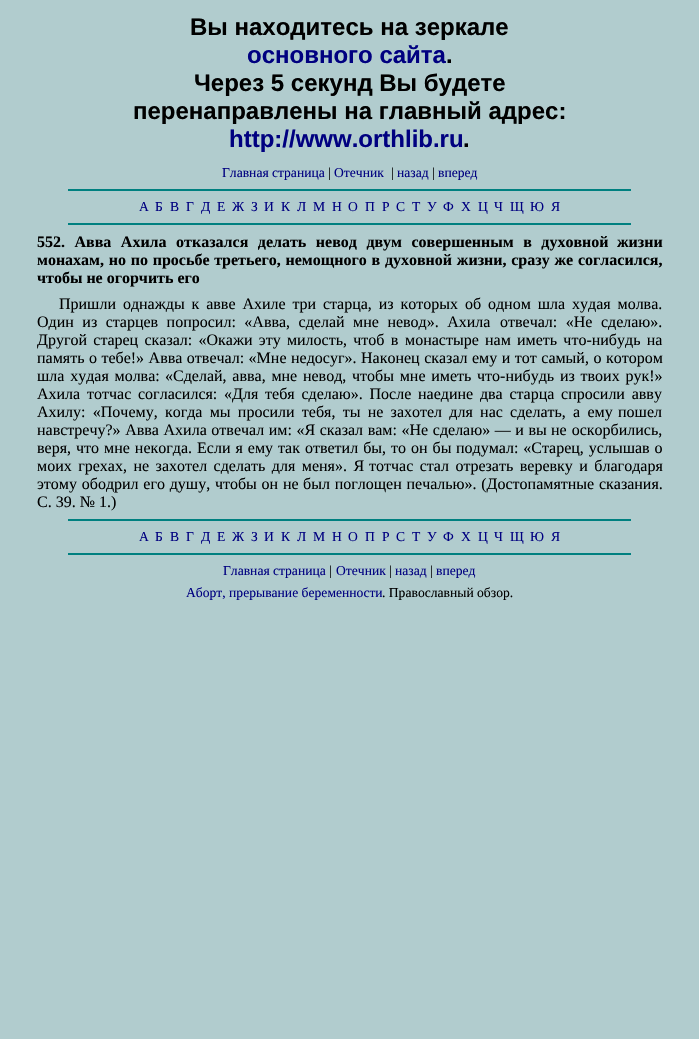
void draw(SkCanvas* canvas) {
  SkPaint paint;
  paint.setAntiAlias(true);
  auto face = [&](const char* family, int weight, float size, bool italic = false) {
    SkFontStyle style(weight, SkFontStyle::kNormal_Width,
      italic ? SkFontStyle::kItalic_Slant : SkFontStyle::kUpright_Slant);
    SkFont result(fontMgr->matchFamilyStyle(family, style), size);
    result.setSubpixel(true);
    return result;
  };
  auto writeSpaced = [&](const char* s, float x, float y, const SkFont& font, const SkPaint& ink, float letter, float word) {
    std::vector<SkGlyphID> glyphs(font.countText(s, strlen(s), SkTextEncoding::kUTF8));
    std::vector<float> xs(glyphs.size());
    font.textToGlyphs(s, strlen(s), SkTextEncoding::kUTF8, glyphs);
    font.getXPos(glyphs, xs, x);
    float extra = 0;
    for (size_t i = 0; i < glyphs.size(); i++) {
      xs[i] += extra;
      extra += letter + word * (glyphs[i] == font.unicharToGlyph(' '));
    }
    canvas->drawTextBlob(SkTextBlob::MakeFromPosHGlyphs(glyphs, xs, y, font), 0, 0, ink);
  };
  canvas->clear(0xffb1ccce);
  {
    const struct { float x, y, w, h; SkColor color; } items[] = {
      {68, 189, 563, 2, 0xff008080},
      {68, 223, 563, 2, 0xff008080},
      {68, 519, 563, 2, 0xff008080},
      {68, 553, 563, 2, 0xff008080},
    };
    for (auto [x, y, w, h, color] : items) {
      paint.setColor(color);
      canvas->drawRect(SkRect::MakeXYWH(x, y, w, h), paint);
    }
  }
  auto f0 = face("Liberation Sans", 700, 24);
  paint.setColor(0xff000000);
  canvas->drawString("Вы находитесь на зеркале", 190, 35, f0, paint);
  paint.setColor(0xff000080);
  canvas->drawString("основного сайта", 247, 63, f0, paint);
  paint.setColor(0xff000000);
  {
    const struct { const char* s; float x, y; } items[] = {
      {".", 446, 63},
      {"Через 5 секунд Вы будете", 194, 91},
      {"перенаправлены на главный адрес:", 133, 119},
    };
    for (auto [s, x, y] : items) {
      canvas->drawString(s, x, y, f0, paint);
    }
  }
  paint.setColor(0xff000080);
  canvas->drawString("http://www.orthlib.ru", 229, 147, f0, paint);
  paint.setColor(0xff000000);
  canvas->drawString(".", 463, 147, f0, paint);
  auto f1 = face("Liberation Serif", 400, 13.6f);
  paint.setColor(0xff000080);
  canvas->drawString("Главная страница", 222, 177, f1, paint);
  paint.setColor(0xff000000);
  canvas->drawString("|", 328, 177, f1, paint);
  paint.setColor(0xff000080);
  canvas->drawString("Отечник", 334, 177, f1, paint);
  paint.setColor(0xff000000);
  canvas->drawString("|", 391, 177, f1, paint);
  paint.setColor(0xff000080);
  canvas->drawString("назад", 397, 177, f1, paint);
  paint.setColor(0xff000000);
  canvas->drawString("|", 432, 177, f1, paint);
  paint.setColor(0xff000080);
  {
    const struct { const char* s; float x, y; } items[] = {
      {"вперед", 438, 177},
      {"А", 139, 211},
      {"Б", 155, 211},
      {"В", 170, 211},
      {"Г", 186, 211},
      {"Д", 201, 211},
      {"Е", 217, 211},
      {"Ж", 232, 211},
      {"З", 251, 211},
      {"И", 264, 211},
      {"К", 281, 211},
      {"Л", 297, 211},
      {"М", 313, 211},
      {"Н", 332, 211},
      {"О", 348, 211},
      {"П", 365, 211},
      {"Р", 382, 211},
      {"С", 396, 211},
      {"Т", 412, 211},
      {"У", 427, 211},
      {"Ф", 443, 211},
      {"Х", 461, 211},
      {"Ц", 478, 211},
      {"Ч", 494, 211},
      {"Щ", 510, 211},
      {"Ю", 530, 211},
      {"Я", 551, 211},
    };
    for (auto [s, x, y] : items) {
      canvas->drawString(s, x, y, f1, paint);
    }
  }
  auto f2 = face("Liberation Serif", 700, 16);
  paint.setColor(0xff000000);
  writeSpaced("552. Авва Ахила отказался делать невод двум совершенным в духовной", 37, 247, f2, paint, 0, 5.5f);
  canvas->drawString("жизни", 617, 247, f2, paint);
  writeSpaced("монахам, но по просьбе третьего, немощного в духовной жизни, сразу же", 37, 265, f2, paint, 0, 0.75f);
  canvas->drawString("согласился,", 578, 265, f2, paint);
  canvas->drawString("чтобы не огорчить его", 37, 283, f2, paint);
  auto f3 = face("Liberation Serif", 400, 16);
  writeSpaced("Пришли однажды к авве Ахиле три старца, из которых об одном шла", 59, 309, f3, paint, 0, 2.9f);
  writeSpaced("худая молва.", 572, 309, f3, paint, 0, 2.9f);
  writeSpaced("Один из старцев попросил: «Авва, сделай мне невод». Ахила", 37, 327, f3, paint, 0, 4.5f);
  writeSpaced("отвечал: «Не сделаю».", 500, 327, f3, paint, 0, 4.5f);
  writeSpaced("Другой старец сказал: «Окажи эту милость, чтоб в", 37, 345, f3, paint, 0, 2.25f);
  writeSpaced("монастыре нам иметь что-нибудь на", 405, 345, f3, paint, 0, 2.25f);
  writeSpaced("память о тебе!» Авва отвечал: «Мне", 37, 363, f3, paint, 0, 0.5f);
  writeSpaced("недосуг». Наконец сказал ему и тот самый, о котором", 291, 363, f3, paint, 0, 0.5f);
  writeSpaced("шла худая молва:", 37, 381, f3, paint, 0, 1.75f);
  writeSpaced("«Сделай, авва, мне невод, чтобы мне иметь что-нибудь из твоих рук!»", 165, 381, f3, paint, 0, 1.75f);
  canvas->drawString("Ахила", 37, 399, f3, paint);
  writeSpaced("тотчас согласился: «Для тебя сделаю». После наедине два старца спросили авву", 87, 399, f3, paint, 0, 2.75f);
  writeSpaced("Ахилу: «Почему, когда мы просили тебя, ты не захотел для нас сделать, а ему", 37, 417, f3, paint, 0, 3.25f);
  canvas->drawString("пошел", 618, 417, f3, paint);
  writeSpaced("навстречу?» Авва Ахила отвечал им: «Я сказал вам: «Не сделаю» — и вы", 37, 435, f3, paint, 0, 0.6f);
  {
    const struct { const char* s; float x, y; } items[] = {
      {"не оскорбились,", 551, 435},
      {"веря, что мне некогда. Если я ему так ответил бы, то он бы", 37, 453},
      {"подумал: «Старец, услышав о", 456, 453},
    };
    for (auto [s, x, y] : items) {
      writeSpaced(s, x, y, f3, paint, 0, 1);
    }
  }
  writeSpaced("моих грехах, не захотел сделать для меня». Я", 37, 471, f3, paint, 0, 2.5f);
  writeSpaced("тотчас стал отрезать веревку и благодаря", 369, 471, f3, paint, 0, 2.5f);
  writeSpaced("этому ободрил его душу, чтобы он не", 37, 489, f3, paint, 0, 0.75f);
  writeSpaced("был поглощен печалью». (Достопамятные сказания.", 303, 489, f3, paint, 0, 0.75f);
  canvas->drawString("С. 39. № 1.)", 37, 507, f3, paint);
  paint.setColor(0xff000080);
  {
    const struct { const char* s; float x, y; } items[] = {
      {"А", 139, 541},
      {"Б", 155, 541},
      {"В", 170, 541},
      {"Г", 186, 541},
      {"Д", 201, 541},
      {"Е", 217, 541},
      {"Ж", 232, 541},
      {"З", 251, 541},
      {"И", 264, 541},
      {"К", 281, 541},
      {"Л", 297, 541},
      {"М", 313, 541},
      {"Н", 332, 541},
      {"О", 348, 541},
      {"П", 365, 541},
      {"Р", 382, 541},
      {"С", 396, 541},
      {"Т", 412, 541},
      {"У", 427, 541},
      {"Ф", 443, 541},
      {"Х", 461, 541},
      {"Ц", 478, 541},
      {"Ч", 494, 541},
      {"Щ", 510, 541},
      {"Ю", 530, 541},
      {"Я", 551, 541},
      {"Главная страница", 223, 575},
    };
    for (auto [s, x, y] : items) {
      canvas->drawString(s, x, y, f1, paint);
    }
  }
  paint.setColor(0xff000000);
  canvas->drawString("|", 329, 575, f1, paint);
  paint.setColor(0xff000080);
  canvas->drawString("Отечник", 336, 575, f1, paint);
  paint.setColor(0xff000000);
  canvas->drawString("|", 389, 575, f1, paint);
  paint.setColor(0xff000080);
  canvas->drawString("назад", 395, 575, f1, paint);
  paint.setColor(0xff000000);
  canvas->drawString("|", 430, 575, f1, paint);
  paint.setColor(0xff000080);
  canvas->drawString("вперед", 436, 575, f1, paint);
  canvas->drawString("Аборт, прерывание беременности", 186, 597, f1, paint);
  paint.setColor(0xff000000);
  canvas->drawString(". Православный обзор.", 382, 597, f1, paint);
}
